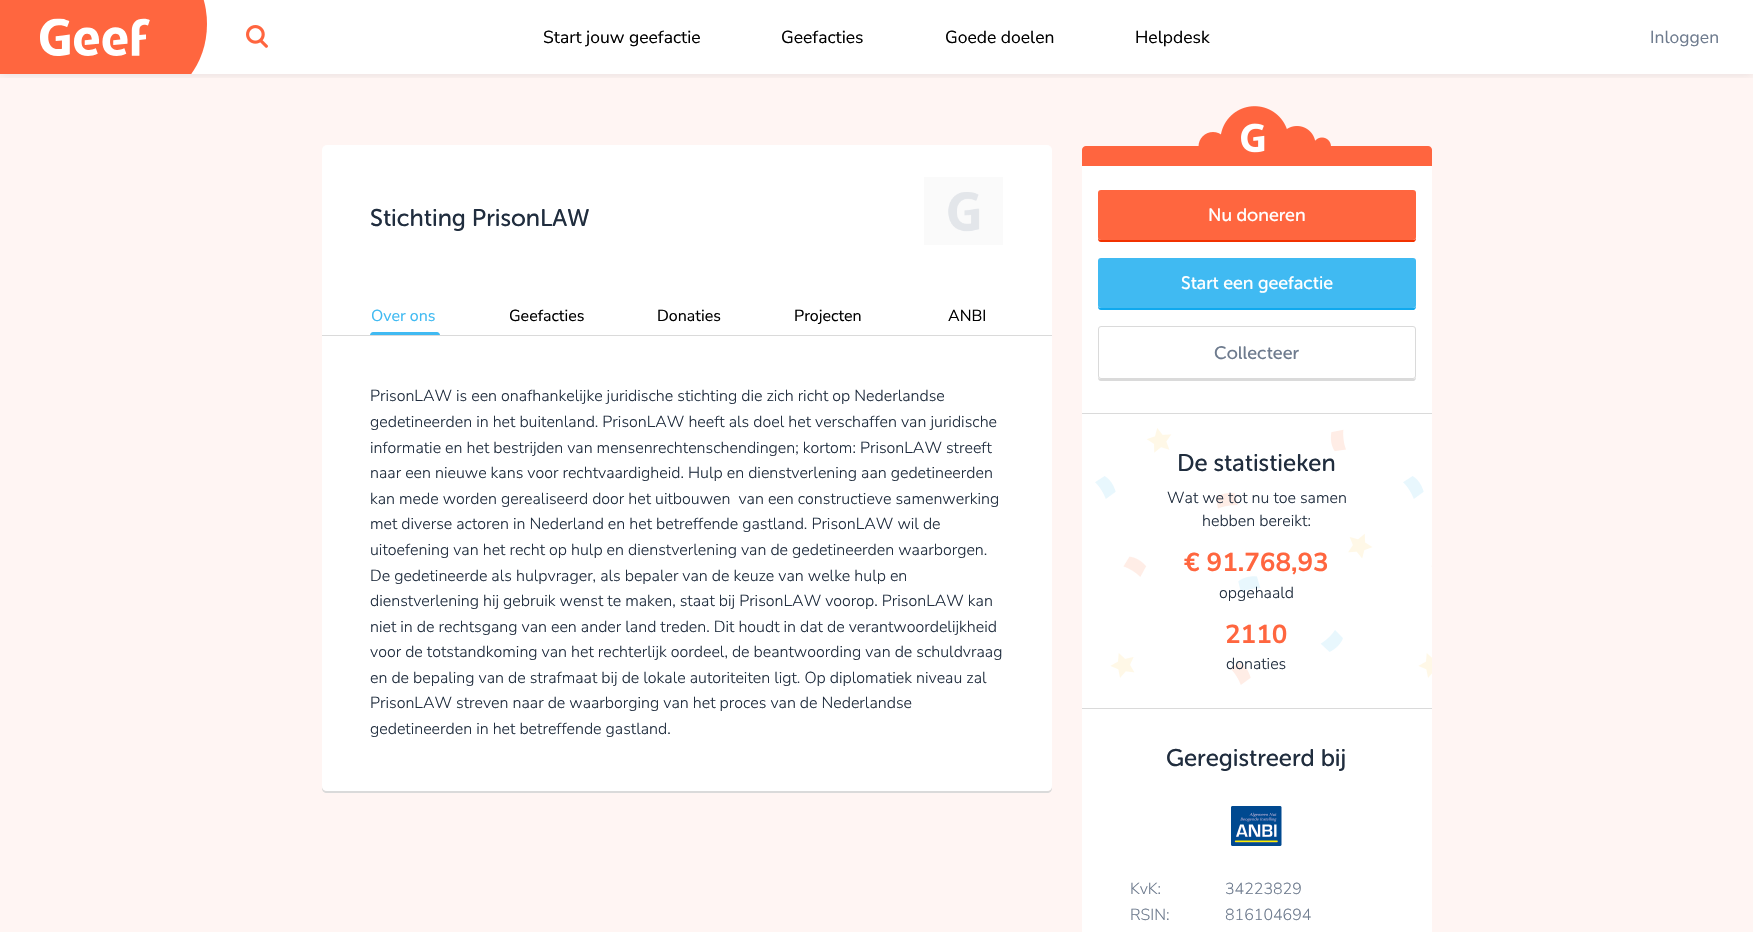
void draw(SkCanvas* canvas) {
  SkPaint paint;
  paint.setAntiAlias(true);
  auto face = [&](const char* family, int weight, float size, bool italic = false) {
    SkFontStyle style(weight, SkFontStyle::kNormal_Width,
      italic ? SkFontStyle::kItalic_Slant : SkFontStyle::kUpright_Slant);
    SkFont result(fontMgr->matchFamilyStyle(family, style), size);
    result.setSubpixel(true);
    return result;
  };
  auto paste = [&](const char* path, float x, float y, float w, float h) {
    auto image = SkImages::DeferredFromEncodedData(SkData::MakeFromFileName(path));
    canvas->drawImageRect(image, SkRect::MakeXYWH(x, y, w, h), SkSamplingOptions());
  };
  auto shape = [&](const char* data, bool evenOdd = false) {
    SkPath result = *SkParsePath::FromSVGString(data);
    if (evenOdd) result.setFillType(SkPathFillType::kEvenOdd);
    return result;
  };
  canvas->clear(0xffffffff);
  paint.setColor(0xfffff5f3);
  canvas->drawRect(SkRect::MakeXYWH(0, 74, 1753, 858), paint);
  canvas->save();
  canvas->clipRect(SkRect::MakeXYWH(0, 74, 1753, 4));
  paint.setColor(0x1a000000);
  paint.setMaskFilter(SkMaskFilter::MakeBlur(kNormal_SkBlurStyle, 5));
  canvas->drawRect(SkRect::MakeXYWH(0, 0, 1753, 74), paint);
  paint.setMaskFilter(nullptr);
  canvas->restore();
  canvas->save();
  canvas->clipRect(SkRect::MakeXYWH(0, 0, 1753, 74));
  paint.setColor(0xffff663f);
  canvas->drawOval(SkRect::MakeXYWH(87, -50, 120, 148), paint);
  canvas->restore();
  canvas->drawRect(SkRect::MakeXYWH(0, 0, 103, 74), paint);
  paste("img/1.png", 40, 18, 110, 38);
  paste("img/2.png", 246, 25, 22, 23);
  paint.setColor(0xffdadada);
  canvas->drawPath(shape("M322 786V788C322 791 324 793 327 793H1047C1050 793 1052 791 1052 788V786C1052 789 1050 791 1047 791H327C324 791 322 789 322 786Z"), paint);
  paint.setColor(0xffffffff);
  canvas->drawRoundRect(SkRect::MakeXYWH(322, 145, 730, 646), 5, 5, paint);
  paste("img/3.png", 924, 177, 79, 68);
  paint.setColor(0xffdadada);
  canvas->drawRect(SkRect::MakeXYWH(322, 335, 730, 1), paint);
  paint.setColor(0xff40baf2);
  canvas->drawPath(shape("M373 332H437C438.5 332 440 333.5 440 335H370C370 333.5 371.5 332 373 332Z"), paint);
  paste("img/4.png", 1082, 106, 350, 60);
  paint.setColor(0xffffffff);
  canvas->drawRect(SkRect::MakeXYWH(1082, 166, 350, 247), paint);
  paint.setColor(0xfff23100);
  canvas->drawPath(shape("M1098 237C1098 239 1098 242 1101 242H1414C1416 241 1416 239 1416 237C1416 239 1415 240 1413 240H1101C1099 240 1098 239 1098 237Z"), paint);
  paint.setColor(0xffff663f);
  canvas->drawRoundRect(SkRect::MakeXYWH(1098, 190, 318, 50), 3, 3, paint);
  paint.setColor(0xff10a9ef);
  canvas->drawPath(shape("M1098 305C1098 307 1098 310 1101 310H1414C1416 309 1416 307 1416 305C1416 307 1415 308 1413 308H1101C1099 308 1098 307 1098 305Z"), paint);
  paint.setColor(0xff40baf2);
  canvas->drawRoundRect(SkRect::MakeXYWH(1098, 258, 318, 50), 3, 3, paint);
  paint.setColor(0xffdadada);
  canvas->drawPath(shape("M1098 376C1098 378 1098 381 1101 381H1414C1416 380 1416 378 1416 376C1416 378 1415 379 1413 379H1101C1099 379 1098 378 1098 376Z"), paint);
  paint.setColor(0xffffffff);
  canvas->drawRoundRect(SkRect::MakeXYWH(1098.5f, 326.5f, 317, 52), 2.5f, 2.5f, paint);
  paint.setStroke(true);
  paint.setStrokeWidth(1);
  paint.setColor(0xffdadada);
  canvas->drawRoundRect(SkRect::MakeXYWH(1098.5f, 326.5f, 317, 52), 2.5f, 2.5f, paint);
  paint.setStroke(false);
  paint.setColor(0xffffffff);
  canvas->drawRect(SkRect::MakeXYWH(1082, 414, 350, 294), paint);
  paste("img/5.png", 1095, 428, 337, 257);
  {
    const struct { float x, y, w, h; SkColor color; } items[] = {
      {1082, 413, 350, 1, 0xffdadada},
      {1082, 708, 350, 1, 0xffdadada},
      {1082, 709, 350, 223, 0xffffffff},
    };
    for (auto [x, y, w, h, color] : items) {
      paint.setColor(color);
      canvas->drawRect(SkRect::MakeXYWH(x, y, w, h), paint);
    }
  }
  paste("img/6.png", 1231, 806, 51, 40);
  auto f0 = face("Nunito Sans", 400, 17.5f);
  paint.setColor(0xff000000);
  {
    const struct { const char* s; float x, y; } items[] = {
      {"Start jouw geefactie", 543, 43},
      {"Geefacties", 781, 43},
      {"Goede doelen", 945, 43},
      {"Helpdesk", 1135, 43},
    };
    for (auto [s, x, y] : items) {
      canvas->drawString(s, x, y, f0, paint);
    }
  }
  paint.setColor(0xff6e7b8e);
  canvas->drawString("Inloggen", 1650, 43, f0, paint);
  auto f1 = face("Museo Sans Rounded", 400, 24);
  paint.setColor(0xff202d3e);
  canvas->drawString("Stichting PrisonLAW", 370, 226, f1, paint);
  auto f2 = face("Nunito Sans", 400, 16);
  paint.setColor(0xff40baf2);
  canvas->drawString("Over ons", 371, 321, f2, paint);
  paint.setColor(0xff000000);
  {
    const struct { const char* s; float x, y; } items[] = {
      {"Geefacties", 509, 321},
      {"Donaties", 657, 321},
      {"Projecten", 794, 321},
      {"ANBI", 948, 321},
    };
    for (auto [s, x, y] : items) {
      canvas->drawString(s, x, y, f2, paint);
    }
  }
  auto f3 = face("Nunito Sans", 300, 16);
  paint.setColor(0xff202d3e);
  {
    const struct { const char* s; float x, y; } items[] = {
      {"PrisonLAW is een onafhankelijke juridische stichting die zich richt op Nederlandse", 370, 401},
      {"gedetineerden in het buitenland. PrisonLAW heeft als doel het verschaffen van juridische", 370, 427},
      {"informatie en het bestrijden van mensenrechtenschendingen; kortom: PrisonLAW streeft", 370, 453},
      {"naar een nieuwe kans voor rechtvaardigheid. Hulp en dienstverlening aan gedetineerden", 370, 478},
      {"kan mede worden gerealiseerd door het uitbouwen  van een constructieve samenwerking", 370, 504},
      {"met diverse actoren in Nederland en het betreffende gastland. PrisonLAW wil de", 370, 529},
      {"uitoefening van het recht op hulp en dienstverlening van de gedetineerden waarborgen.", 370, 555},
      {"De gedetineerde als hulpvrager, als bepaler van de keuze van welke hulp en", 370, 581},
      {"dienstverlening hij gebruik wenst te maken, staat bij PrisonLAW voorop. PrisonLAW kan", 370, 606},
      {"niet in de rechtsgang van een ander land treden. Dit houdt in dat de verantwoordelijkheid", 370, 632},
      {"voor de totstandkoming van het rechterlijk oordeel, de beantwoording van de schuldvraag", 370, 657},
      {"en de bepaling van de strafmaat bij de lokale autoriteiten ligt. Op diplomatiek niveau zal", 370, 683},
      {"PrisonLAW streven naar de waarborging van het proces van de Nederlandse", 370, 708},
      {"gedetineerden in het betreffende gastland.", 370, 734},
    };
    for (auto [s, x, y] : items) {
      canvas->drawString(s, x, y, f3, paint);
    }
  }
  auto f4 = face("Museo Sans Rounded", 400, 18);
  paint.setColor(0xffffffff);
  canvas->drawString("Nu doneren", 1208, 221, f4, paint);
  canvas->drawString("Start een geefactie", 1181, 289, f4, paint);
  paint.setColor(0xff6e7b8e);
  canvas->drawString("Collecteer", 1214, 359, f4, paint);
  paint.setColor(0xff202d3e);
  canvas->drawString("De statistieken", 1177, 471, f1, paint);
  canvas->drawString("Wat we tot nu toe samen", 1167, 503, f3, paint);
  canvas->drawString("hebben bereikt:", 1202, 526, f3, paint);
  auto f5 = face("Nunito Sans", 700, 26);
  paint.setColor(0xffff663f);
  canvas->drawString("€ 91.768,93", 1184, 571, f5, paint);
  paint.setColor(0xff202d3e);
  canvas->drawString("opgehaald", 1219, 598, f3, paint);
  paint.setColor(0xffff663f);
  canvas->drawString("2110", 1225, 643, f5, paint);
  paint.setColor(0xff202d3e);
  canvas->drawString("donaties", 1226, 669, f3, paint);
  canvas->drawString("Geregistreerd bij", 1166, 766, f1, paint);
  paint.setColor(0xff6e7b8e);
  {
    const struct { const char* s; float x, y; } items[] = {
      {"KvK:", 1130, 894},
      {"34223829", 1225, 894},
      {"RSIN:", 1130, 920},
      {"816104694", 1225, 920},
    };
    for (auto [s, x, y] : items) {
      canvas->drawString(s, x, y, f3, paint);
    }
  }
}
